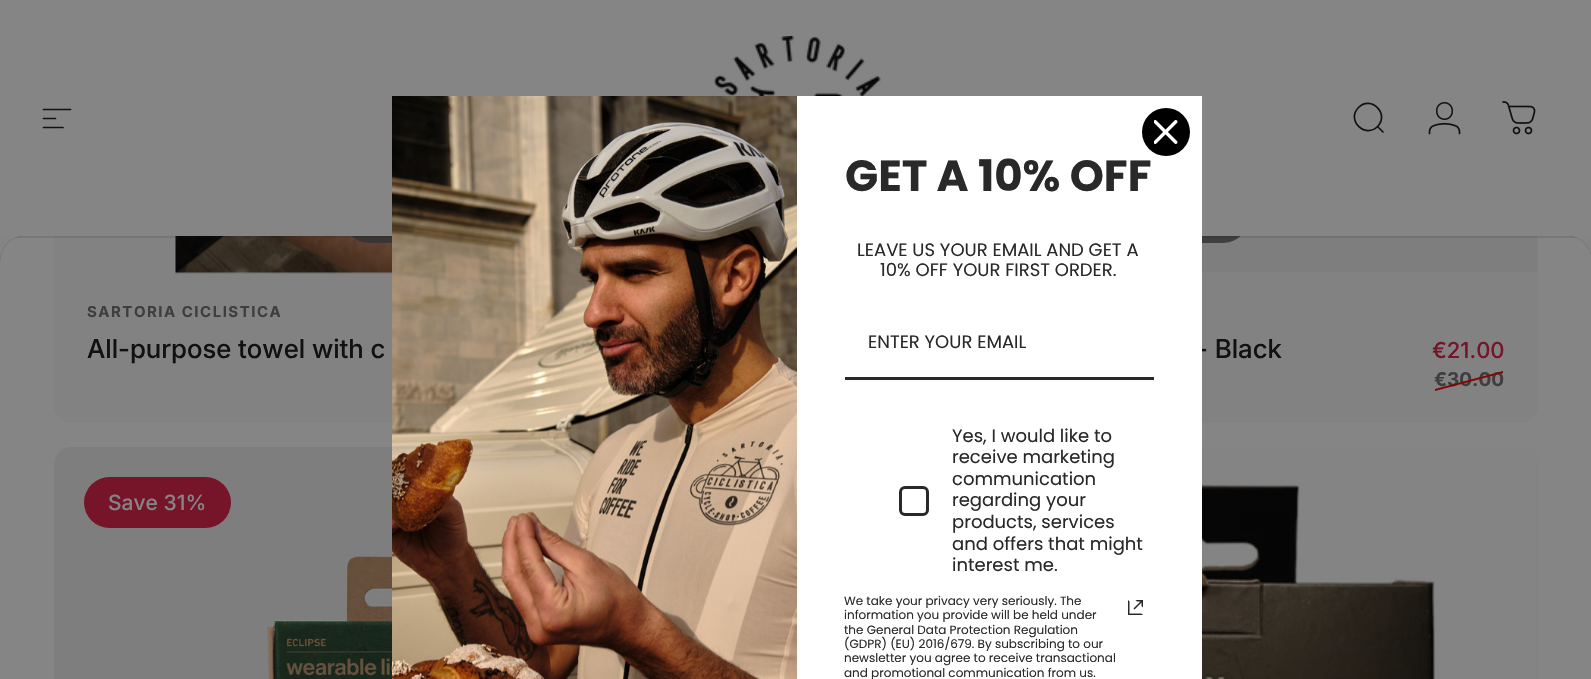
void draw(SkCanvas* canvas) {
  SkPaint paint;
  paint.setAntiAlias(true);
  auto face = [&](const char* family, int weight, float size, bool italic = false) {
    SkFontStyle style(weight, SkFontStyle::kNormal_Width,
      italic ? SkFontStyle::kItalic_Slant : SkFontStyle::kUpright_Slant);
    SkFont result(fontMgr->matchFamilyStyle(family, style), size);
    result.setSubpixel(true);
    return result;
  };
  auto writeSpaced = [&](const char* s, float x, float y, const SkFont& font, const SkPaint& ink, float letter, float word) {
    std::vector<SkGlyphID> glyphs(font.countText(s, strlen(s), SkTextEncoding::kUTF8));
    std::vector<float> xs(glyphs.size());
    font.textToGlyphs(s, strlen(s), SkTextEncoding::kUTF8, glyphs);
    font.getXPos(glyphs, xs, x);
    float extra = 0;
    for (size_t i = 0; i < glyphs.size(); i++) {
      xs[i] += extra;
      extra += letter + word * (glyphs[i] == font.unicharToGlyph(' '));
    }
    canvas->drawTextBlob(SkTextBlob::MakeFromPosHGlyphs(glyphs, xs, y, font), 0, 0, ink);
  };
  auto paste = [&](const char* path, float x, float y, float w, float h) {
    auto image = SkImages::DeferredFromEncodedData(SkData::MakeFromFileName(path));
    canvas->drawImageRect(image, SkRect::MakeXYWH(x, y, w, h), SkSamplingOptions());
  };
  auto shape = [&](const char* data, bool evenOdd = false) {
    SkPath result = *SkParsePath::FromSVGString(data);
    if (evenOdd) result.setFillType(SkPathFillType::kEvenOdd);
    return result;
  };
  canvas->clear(0xff858585);
  paint.setColor(0xff828282);
  canvas->drawRoundRect(SkRect::MakeXYWH(54, -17, 731, 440), 17, 17, paint);
  paste("img/9.png", 175, 236, 217, 38);
  paint.setColor(0x99858585);
  canvas->drawRoundRect(SkRect::MakeXYWH(341, 185, 156, 58), 29, 29, paint);
  paint.setColor(0x99111111);
  canvas->drawPath(shape("M370 185H468C484 185 497 198 497 214C497 230 484 243 468 243H370C354 243 341 230 341 214C341 198 354 185 370 185Z"), paint);
  paint.setColor(0xff828282);
  canvas->drawRoundRect(SkRect::MakeXYWH(809, -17, 729, 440), 17, 17, paint);
  paste("img/10.png", 1202, 236, 335, 36);
  paint.setColor(0x99858585);
  canvas->drawRoundRect(SkRect::MakeXYWH(1095, 185, 156, 58), 29, 29, paint);
  paint.setColor(0x99111111);
  canvas->drawPath(shape("M1124 185H1222C1238 185 1251 198 1251 214C1251 230 1238 243 1222 243H1124C1108 243 1095 230 1095 214C1095 198 1108 185 1124 185Z"), paint);
  paint.setColor(0xff858585);
  canvas->drawRect(SkRect::MakeXYWH(54, 0, 1484, 236), paint);
  paste("img/1.png", 713, 36, 168, 60);
  paint.setStroke(true);
  paint.setStrokeWidth(1.7f);
  paint.setStrokeCap(SkPaint::kRound_Cap);
  paint.setColor(0xff111111);
  canvas->drawPath(shape("M43.5 109.5H70.5M43.5 118.5H55.5M43.5 127.5H63"), paint);
  canvas->drawPath(shape("M1383 132L1377.5 126.5M1377.5 126.5C1390 114 1371 95 1358.5 107.5C1346 120 1365 139 1377.5 126.5Z"), paint);
  paste("img/2.png", 1428, 102, 33, 33);
  paste("img/3.png", 1502, 101, 34, 34);
  paint.setStroke(false);
  paint.setColor(0x1c111111);
  canvas->drawRect(SkRect::MakeXYWH(14, 236, 1563, 2), paint);
  paste("img/4.png", 0, 236, 25, 25);
  paste("img/5.png", 1567, 236, 24, 20);
  paste("img/7.png", 392, 96, 405, 583);
  paste("img/11.png", 54, 447, 338, 232);
  paint.setColor(0xff761429);
  canvas->drawRoundRect(SkRect::MakeXYWH(84, 477, 147, 51), 25.5f, 25.5f, paint);
  paint.setColor(0xff828282);
  canvas->drawRoundRect(SkRect::MakeXYWH(809, 447, 729, 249), 17, 17, paint);
  paste("img/12.png", 1202, 447, 335, 232);
  auto f0 = face("Inter", 700, 15);
  paint.setColor(0xff3e3e3e);
  writeSpaced("SARTORIA CICLISTICA", 87, 317, f0, paint, 1.5f, 0);
  auto f1 = face("Inter", 500, 26);
  paint.setColor(0xff111111);
  canvas->drawString("All-purpose towel with c", 87, 358, f1, paint);
  canvas->drawString("- Black", 1196, 358, f1, paint);
  paint.setColor(0xffffffff);
  canvas->drawRect(SkRect::MakeXYWH(797, 96, 405, 583), paint);
  paint.setColor(0xff000000);
  canvas->drawCircle(1166, 132, 24, paint);
  paste("img/6.png", 1154, 120, 24, 24);
  paint.setStroke(true);
  paint.setStrokeWidth(3);
  paint.setStrokeCap(SkPaint::kButt_Cap);
  paint.setColor(0xff292929);
  canvas->drawRoundRect(SkRect::MakeXYWH(900.5f, 487.5f, 27, 27), 4.5f, 4.5f, paint);
  auto f2 = face("Poppins", 400, 18);
  paint.setStroke(false);
  {
    const struct { const char* s; float x, y; } items[] = {
      {"interest me.", 952, 571},
      {"and offers that might", 952, 550},
      {"products, services", 952, 528},
      {"regarding your", 952, 506},
      {"communication", 952, 485},
      {"receive marketing", 952, 463},
      {"Yes, I would like to", 952, 442},
    };
    for (auto [s, x, y] : items) {
      canvas->drawString(s, x, y, f2, paint);
    }
  }
  paste("img/8.png", 1128, 600, 15, 15);
  auto f3 = face("Poppins", 400, 12);
  {
    const struct { const char* s; float x, y; } items[] = {
      {"and promotional communication from us.", 844, 677},
      {"newsletter you agree to receive transactional", 844, 662},
      {"(GDPR) (EU) 2016/679. By subscribing to our", 844, 648},
      {"the General Data Protection Regulation", 844, 634},
      {"information you provide will be held under", 844, 619},
      {"We take your privacy very seriously. The", 844, 605},
    };
    for (auto [s, x, y] : items) {
      canvas->drawString(s, x, y, f3, paint);
    }
  }
  canvas->drawString("ENTER YOUR EMAIL", 868, 348, f2, paint);
  canvas->drawRect(SkRect::MakeXYWH(845, 377, 309, 3), paint);
  canvas->drawString("10% OFF YOUR FIRST ORDER.", 880, 276, f2, paint);
  canvas->drawString("LEAVE US YOUR EMAIL AND GET A", 857, 256, f2, paint);
  auto f4 = face("Poppins", 700, 43.5f);
  canvas->drawString("GET A 10% OFF", 845, 191, f4, paint);
  auto f5 = face("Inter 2", 500, 22);
  paint.setColor(0xff761429);
  canvas->drawString("€21.00", 1432, 358, f5, paint);
  auto f6 = face("Inter", 700, 19);
  paint.setColor(0xff3e3e3e);
  canvas->drawString("€30.00", 1434, 386, f6, paint);
  paint.setColor(0xff850505);
  canvas->drawPath(shape("M1435 389L1503 371V373L1435 391Z"), paint);
  auto f7 = face("Inter 2", 500, 21);
  paint.setColor(0xff858585);
  canvas->drawString("Save 31%", 108, 510, f7, paint);
}
